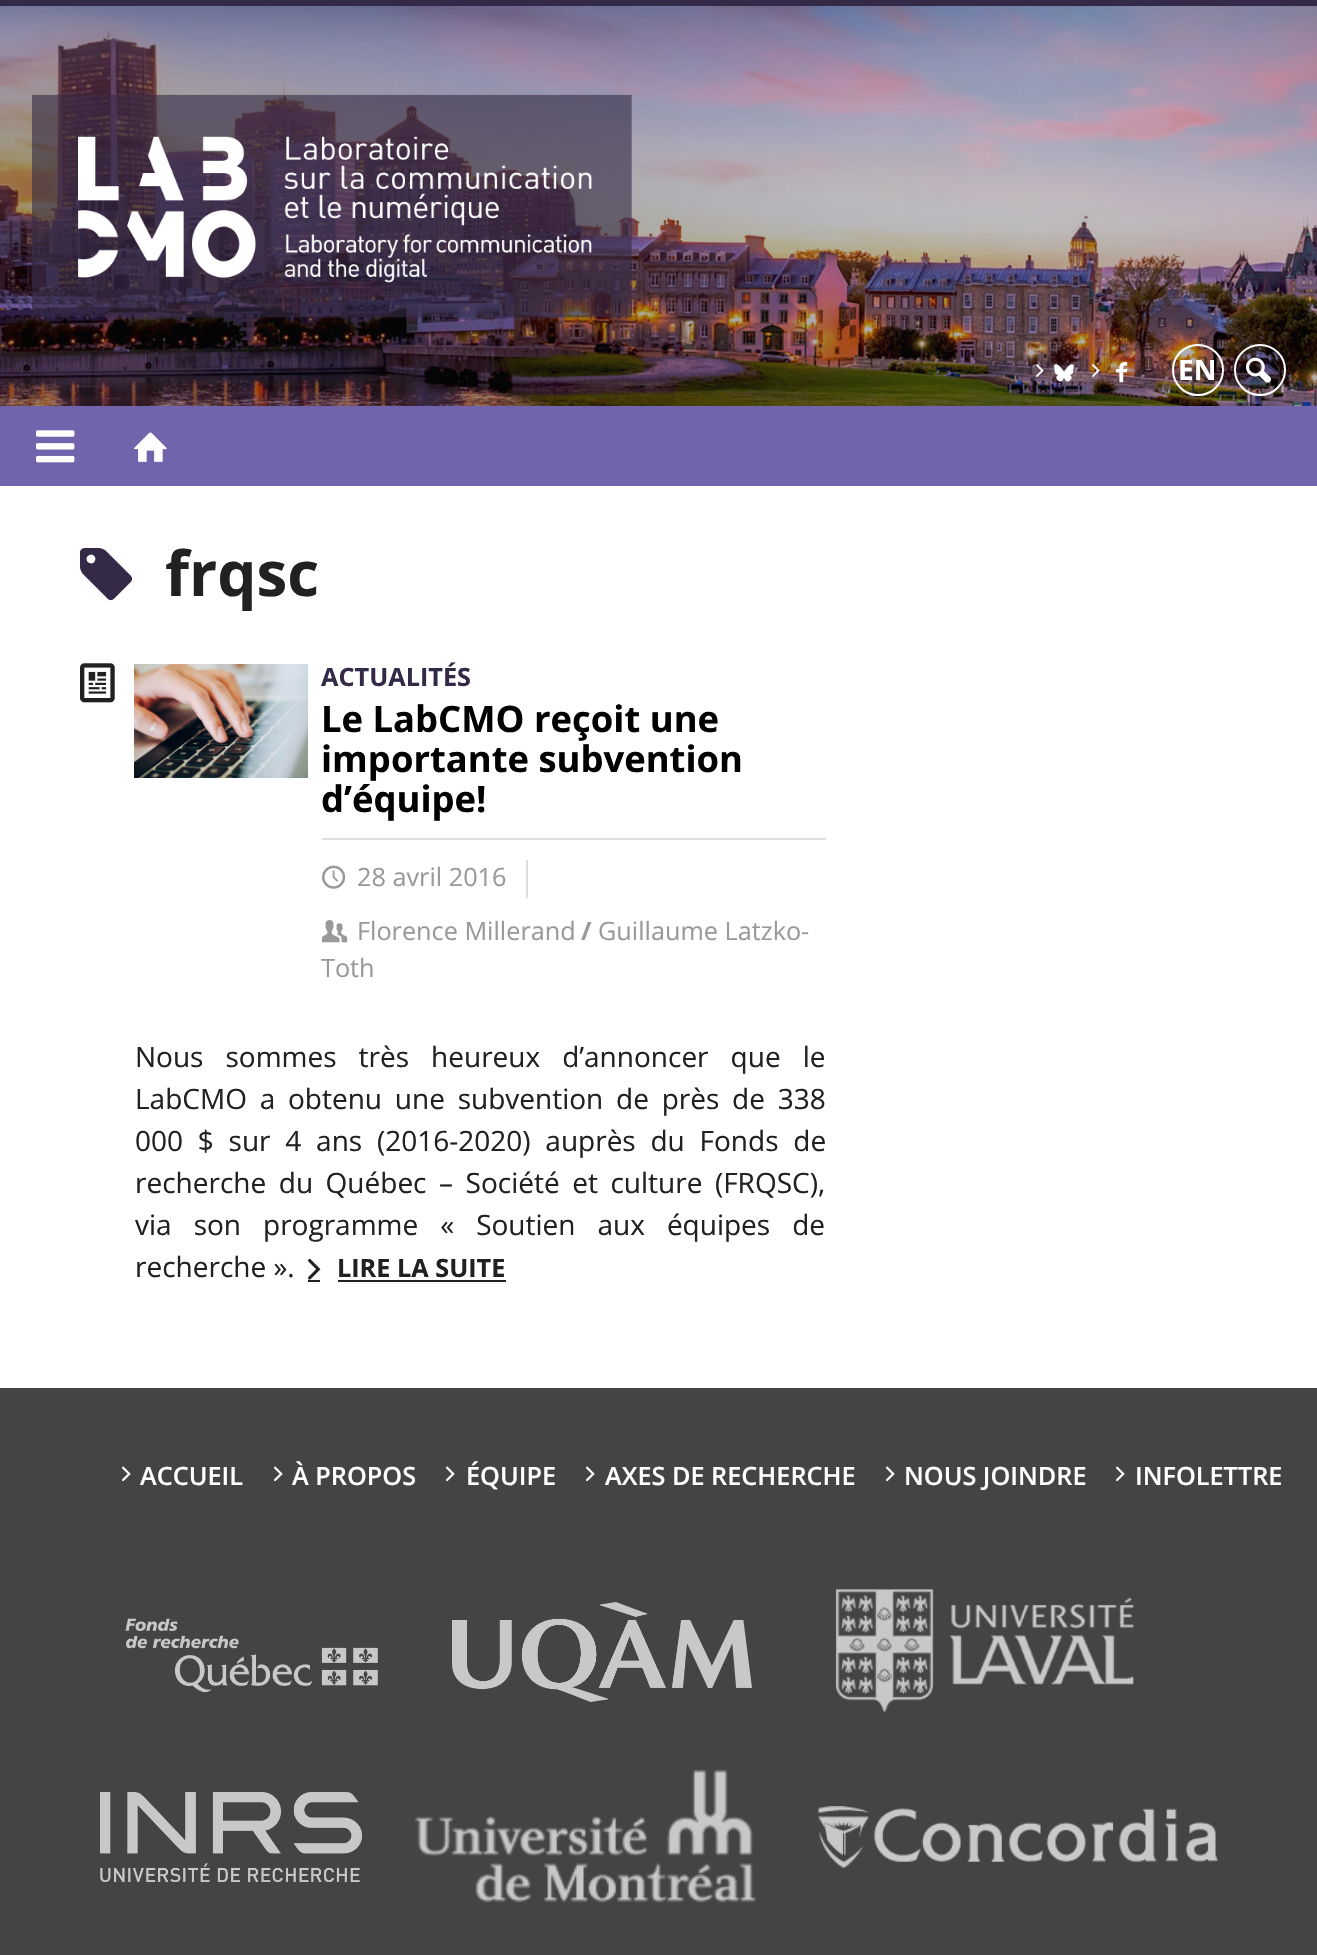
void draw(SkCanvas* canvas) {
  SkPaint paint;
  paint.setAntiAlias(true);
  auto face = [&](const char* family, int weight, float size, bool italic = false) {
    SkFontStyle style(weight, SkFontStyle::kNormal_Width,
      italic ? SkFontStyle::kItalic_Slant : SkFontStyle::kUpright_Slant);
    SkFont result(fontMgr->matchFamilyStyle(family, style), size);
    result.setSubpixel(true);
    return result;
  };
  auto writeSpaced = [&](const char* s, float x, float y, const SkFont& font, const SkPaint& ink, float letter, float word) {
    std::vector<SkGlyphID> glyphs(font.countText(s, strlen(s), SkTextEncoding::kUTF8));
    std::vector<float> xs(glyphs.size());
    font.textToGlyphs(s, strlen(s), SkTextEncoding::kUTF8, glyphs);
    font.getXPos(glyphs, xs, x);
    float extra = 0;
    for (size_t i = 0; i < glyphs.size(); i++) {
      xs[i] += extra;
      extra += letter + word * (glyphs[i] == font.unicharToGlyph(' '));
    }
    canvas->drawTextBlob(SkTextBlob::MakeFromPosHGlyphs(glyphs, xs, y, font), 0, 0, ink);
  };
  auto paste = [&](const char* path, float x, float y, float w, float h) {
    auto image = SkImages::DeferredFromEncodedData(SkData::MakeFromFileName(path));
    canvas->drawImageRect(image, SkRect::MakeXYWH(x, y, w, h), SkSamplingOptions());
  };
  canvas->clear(0xffffffff);
  paste("img/1.png", 0, 6, 1317, 400);
  paint.setColor(0xff342947);
  canvas->drawRect(SkRect::MakeXYWH(0, 0, 1317, 6), paint);
  paste("img/2.png", 32, 94, 600, 224);
  paste("img/3.png", 1036, 364, 8, 13);
  paste("img/4.png", 1054, 364, 20, 18);
  paste("img/5.png", 1092, 364, 8, 13);
  paste("img/6.png", 1116, 362, 12, 21);
  paint.setStroke(true);
  paint.setStrokeWidth(2);
  paint.setColor(0xffffffff);
  canvas->drawCircle(1198, 370, 25, paint);
  canvas->drawCircle(1260, 370, 25, paint);
  paste("img/7.png", 1246, 357, 25, 26);
  paint.setStroke(false);
  paint.setColor(0xff7264ac);
  canvas->drawRect(SkRect::MakeXYWH(0, 406, 1317, 80), paint);
  paste("img/8.png", 36, 430, 39, 33);
  paste("img/9.png", 134, 432, 33, 30);
  paste("img/10.png", 80, 548, 53, 53);
  paste("img/11.png", 80, 663, 35, 40);
  paste("img/12.png", 134, 664, 174, 114);
  paint.setColor(0xffdddddd);
  canvas->drawRect(SkRect::MakeXYWH(322, 838, 504, 2), paint);
  canvas->drawRect(SkRect::MakeXYWH(526, 860, 2, 38), paint);
  paste("img/13.png", 322, 865, 24, 24);
  paste("img/14.png", 322, 920, 26, 23);
  paint.setColor(0xff212121);
  canvas->drawRect(SkRect::MakeXYWH(308, 1280, 12, 2), paint);
  paste("img/15.png", 308, 1259, 13, 21);
  canvas->drawRect(SkRect::MakeXYWH(338, 1280, 168, 2), paint);
  paint.setColor(0xff444444);
  canvas->drawRect(SkRect::MakeXYWH(0, 1388, 1317, 567), paint);
  paste("img/16.png", 122, 1466, 9, 16);
  paste("img/16.png", 274, 1466, 9, 16);
  paste("img/16.png", 446, 1466, 9, 16);
  paste("img/16.png", 586, 1466, 9, 16);
  paste("img/16.png", 886, 1466, 9, 16);
  paste("img/16.png", 1116, 1466, 9, 16);
  paste("img/17.png", 125, 1618, 253, 75);
  paste("img/18.png", 452, 1602, 300, 100);
  paste("img/19.png", 835, 1589, 299, 123);
  paste("img/20.png", 100, 1792, 262, 90);
  paste("img/21.png", 414, 1769, 342, 134);
  paste("img/22.png", 818, 1806, 400, 62);
  auto f0 = face("Open Sans", 700, 28);
  paint.setColor(0xffffffff);
  canvas->drawString("EN", 1178, 380, f0, paint);
  auto f1 = face("Open Sans", 700, 62);
  paint.setColor(0xff212121);
  canvas->drawString("frqsc", 165, 596, f1, paint);
  auto f2 = face("Open Sans", 700, 25.25f);
  paint.setColor(0xff342947);
  canvas->drawString("ACTUALITÉS", 321, 686, f2, paint);
  auto f3 = face("Open Sans", 700, 36.4f);
  paint.setColor(0xff000000);
  {
    const struct { const char* s; float x, y; } items[] = {
      {"Le LabCMO reçoit une", 321, 732},
      {"importante subvention", 321, 772},
      {"d’équipe!", 321, 812},
    };
    for (auto [s, x, y] : items) {
      canvas->drawString(s, x, y, f3, paint);
    }
  }
  auto f4 = face("Open Sans", 400, 25.25f);
  paint.setColor(0xff999999);
  canvas->drawString("28 avril 2016", 357, 886, f4, paint);
  canvas->drawString("Florence Millerand", 357, 940, f4, paint);
  canvas->drawString("/", 581, 940, f2, paint);
  canvas->drawString("Guillaume Latzko-", 598, 940, f4, paint);
  canvas->drawString("Toth", 321, 977, f4, paint);
  auto f5 = face("Open Sans", 400, 28);
  paint.setColor(0xff212121);
  writeSpaced("Nous sommes très heureux d’annoncer que le", 135, 1067, f5, paint, 0, 14.75f);
  writeSpaced("LabCMO a obtenu une subvention de près de 338", 135, 1109, f5, paint, 0, 5.5f);
  writeSpaced("000 $ sur 4 ans (2016-2020) auprès du Fonds de", 135, 1151, f5, paint, 0, 7.5f);
  writeSpaced("recherche du Québec – Société et culture (FRQSC),", 135, 1193, f5, paint, 0, 5.25f);
  writeSpaced("via son programme « Soutien aux équipes de", 135, 1235, f5, paint, 0, 14.75f);
  canvas->drawString("recherche ».", 135, 1277, f5, paint);
  canvas->drawString("LIRE LA SUITE", 337, 1277, f2, paint);
  auto f6 = face("Open Sans", 600, 25.25f);
  paint.setColor(0xffffffff);
  {
    const struct { const char* s; float x, y; } items[] = {
      {"ACCUEIL", 140, 1485},
      {"À PROPOS", 292, 1485},
      {"ÉQUIPE", 466, 1485},
      {"AXES DE RECHERCHE", 605, 1485},
      {"NOUS JOINDRE", 904, 1485},
      {"INFOLETTRE", 1135, 1485},
    };
    for (auto [s, x, y] : items) {
      canvas->drawString(s, x, y, f6, paint);
    }
  }
}
